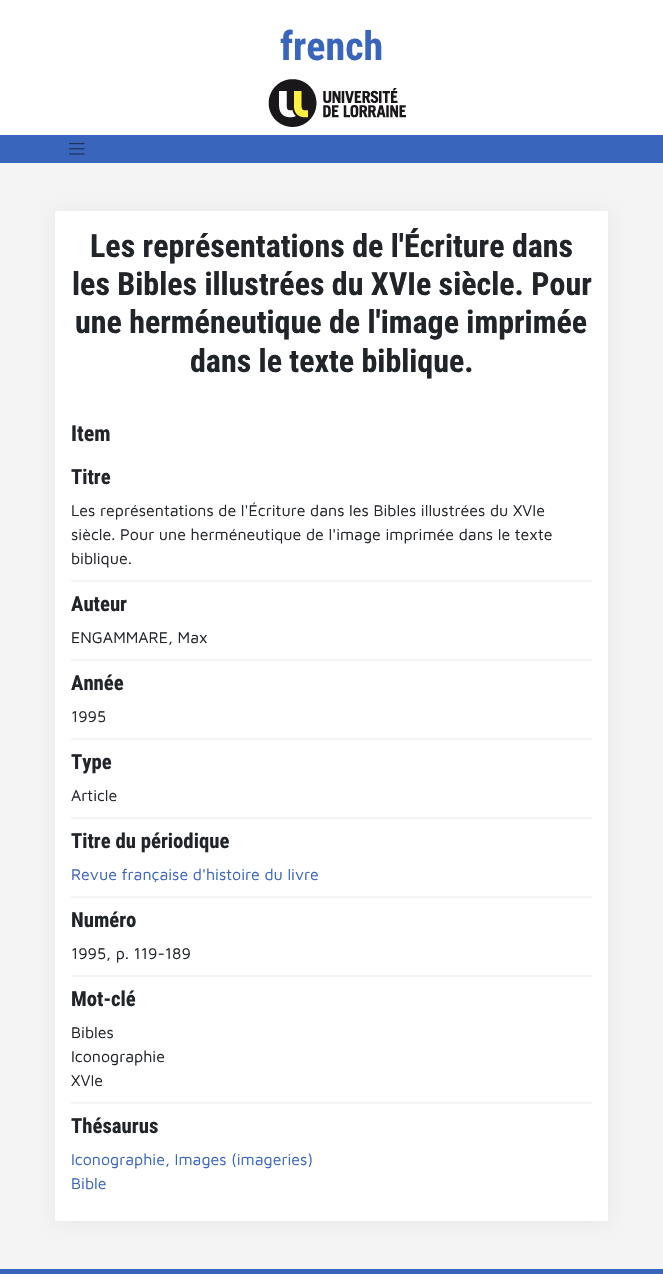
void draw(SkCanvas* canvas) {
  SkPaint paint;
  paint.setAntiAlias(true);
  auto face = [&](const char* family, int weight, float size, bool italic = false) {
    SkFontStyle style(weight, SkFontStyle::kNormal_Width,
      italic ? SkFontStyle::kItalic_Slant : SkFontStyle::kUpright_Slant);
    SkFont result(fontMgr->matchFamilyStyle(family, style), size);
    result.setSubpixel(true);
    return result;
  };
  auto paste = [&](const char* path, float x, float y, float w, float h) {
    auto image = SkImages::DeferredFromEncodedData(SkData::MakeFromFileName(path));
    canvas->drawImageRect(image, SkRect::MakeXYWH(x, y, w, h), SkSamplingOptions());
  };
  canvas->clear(0xfff4f4f4);
  paint.setColor(0xffffffff);
  canvas->drawRect(SkRect::MakeXYWH(0, 0, 663, 135), paint);
  paste("img/1.png", 268, 79, 138, 48);
  paint.setColor(0xff3965bc);
  canvas->drawRect(SkRect::MakeXYWH(0, 135, 663, 28), paint);
  paste("img/2.png", 69, 142, 16, 13);
  paint.setColor(0x2ba2a2a2);
  paint.setMaskFilter(SkMaskFilter::MakeBlur(kNormal_SkBlurStyle, 10));
  canvas->drawRect(SkRect::MakeXYWH(56, 212, 553, 1010), paint);
  paint.setMaskFilter(nullptr);
  {
    const struct { float x, y, w, h; SkColor color; } items[] = {
      {55, 211, 553, 1010, 0xffffffff},
      {71, 580, 521, 2, 0xfff4f4f4},
      {71, 659, 521, 2, 0xfff4f4f4},
      {71, 738, 521, 2, 0xfff4f4f4},
      {71, 817, 521, 2, 0xfff4f4f4},
      {71, 896, 521, 2, 0xfff4f4f4},
      {71, 975, 521, 2, 0xfff4f4f4},
      {71, 1102, 521, 2, 0xfff4f4f4},
      {0, 1269, 663, 5, 0xff3965bc},
    };
    for (auto [x, y, w, h, color] : items) {
      paint.setColor(color);
      canvas->drawRect(SkRect::MakeXYWH(x, y, w, h), paint);
    }
  }
  auto f0 = face("Roboto Condensed", 700, 40);
  canvas->drawString("french", 280, 60, f0, paint);
  auto f1 = face("Roboto Condensed", 700, 32);
  paint.setColor(0xff212529);
  {
    const struct { const char* s; float x, y; } items[] = {
      {"Les représentations de l'Écriture dans", 90, 257},
      {"les Bibles illustrées du XVIe siècle. Pour", 72, 295},
      {"une herméneutique de l'image imprimée", 75, 333},
      {"dans le texte biblique.", 190, 372},
    };
    for (auto [s, x, y] : items) {
      canvas->drawString(s, x, y, f1, paint);
    }
  }
  auto f2 = face("Roboto Condensed", 700, 22);
  canvas->drawString("Item", 71, 441, f2, paint);
  auto f3 = face("Roboto Condensed", 700, 20.75f);
  canvas->drawString("Titre", 71, 484, f3, paint);
  auto f4 = face("Maven Pro", 400, 16);
  {
    const struct { const char* s; float x, y; } items[] = {
      {"Les représentations de l'Écriture dans les Bibles illustrées du XVIe", 71, 516},
      {"siècle. Pour une herméneutique de l'image imprimée dans le texte", 71, 540},
      {"biblique.", 71, 564},
    };
    for (auto [s, x, y] : items) {
      canvas->drawString(s, x, y, f4, paint);
    }
  }
  canvas->drawString("Auteur", 71, 611, f3, paint);
  canvas->drawString("ENGAMMARE, Max", 71, 643, f4, paint);
  canvas->drawString("Année", 71, 690, f3, paint);
  canvas->drawString("1995", 71, 722, f4, paint);
  canvas->drawString("Type", 71, 769, f3, paint);
  canvas->drawString("Article", 71, 801, f4, paint);
  canvas->drawString("Titre du périodique", 71, 848, f3, paint);
  paint.setColor(0xff3965bc);
  canvas->drawString("Revue française d'histoire du livre", 71, 880, f4, paint);
  paint.setColor(0xff212529);
  canvas->drawString("Numéro", 71, 927, f3, paint);
  canvas->drawString("1995, p. 119-189", 71, 959, f4, paint);
  canvas->drawString("Mot-clé", 71, 1006, f3, paint);
  {
    const struct { const char* s; float x, y; } items[] = {
      {"Bibles", 71, 1038},
      {"Iconographie", 71, 1062},
      {"XVIe", 71, 1086},
    };
    for (auto [s, x, y] : items) {
      canvas->drawString(s, x, y, f4, paint);
    }
  }
  canvas->drawString("Thésaurus", 71, 1133, f3, paint);
  paint.setColor(0xff3965bc);
  canvas->drawString("Iconographie, Images (imageries)", 71, 1165, f4, paint);
  canvas->drawString("Bible", 71, 1189, f4, paint);
}
